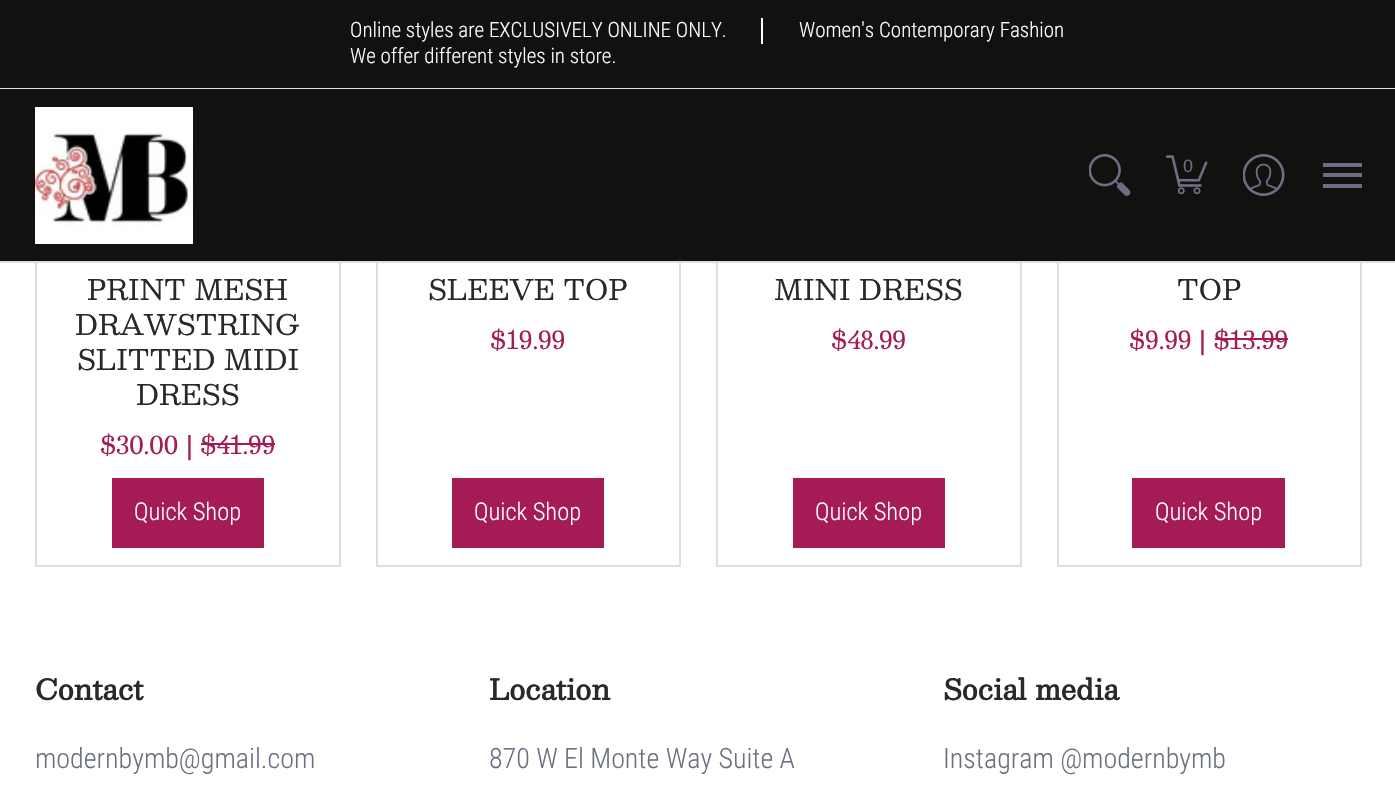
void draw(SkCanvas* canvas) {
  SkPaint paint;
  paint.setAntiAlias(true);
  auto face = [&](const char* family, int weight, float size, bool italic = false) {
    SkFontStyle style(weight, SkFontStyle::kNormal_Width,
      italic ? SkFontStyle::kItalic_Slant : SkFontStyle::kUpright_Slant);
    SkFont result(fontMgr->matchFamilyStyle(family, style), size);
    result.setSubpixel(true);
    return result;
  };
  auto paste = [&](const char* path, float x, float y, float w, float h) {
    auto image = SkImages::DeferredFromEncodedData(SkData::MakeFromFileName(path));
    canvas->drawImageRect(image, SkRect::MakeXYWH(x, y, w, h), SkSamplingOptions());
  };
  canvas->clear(0xffffffff);
  paint.setStroke(true);
  paint.setStrokeWidth(2);
  paint.setColor(0xffdedede);
  canvas->drawRect(SkRect::MakeXYWH(36, -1, 304, 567), paint);
  canvas->drawRect(SkRect::MakeXYWH(377, -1, 303, 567), paint);
  canvas->drawRect(SkRect::MakeXYWH(717, -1, 304, 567), paint);
  canvas->drawRect(SkRect::MakeXYWH(1058, -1, 303, 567), paint);
  paint.setStroke(false);
  {
    const struct { float x, y, w, h; SkColor color; } items[] = {
      {0, 0, 1395, 88, 0xff121110},
      {0, 88, 1395, 1, 0xffdedede},
      {761, 18, 2, 26, 0xffffffff},
      {0, 261, 1395, 2, 0xffdedede},
      {0, 89, 1395, 172, 0xff121110},
    };
    for (auto [x, y, w, h, color] : items) {
      paint.setColor(color);
      canvas->drawRect(SkRect::MakeXYWH(x, y, w, h), paint);
    }
  }
  paste("img/1.png", 35, 107, 158, 137);
  paste("img/2.png", 1089, 154, 42, 42);
  paste("img/3.png", 1166, 155, 42, 40);
  paste("img/4.png", 1243, 154, 42, 42);
  {
    const struct { float x, y, w, h; SkColor color; } items[] = {
      {1323, 163, 39, 4, 0xff6b6f81},
      {1323, 184, 39, 4, 0xff6b6f81},
      {1323, 173, 39, 4, 0xff6b6f81},
      {201, 443, 74, 2, 0xffa41b56},
      {112, 478, 152, 70, 0xffa41b56},
      {452, 478, 152, 70, 0xffa41b56},
      {793, 478, 152, 70, 0xffa41b56},
      {1215, 338, 73, 2, 0xffa41b56},
      {1132, 478, 153, 70, 0xffa41b56},
    };
    for (auto [x, y, w, h, color] : items) {
      paint.setColor(color);
      canvas->drawRect(SkRect::MakeXYWH(x, y, w, h), paint);
    }
  }
  auto f0 = face("Roboto Condensed", 300, 21);
  paint.setColor(0xffffffff);
  {
    const struct { const char* s; float x, y; } items[] = {
      {"Online styles are EXCLUSIVELY ONLINE ONLY.", 350, 37},
      {"We offer different styles in store.", 350, 63},
      {"Women's Contemporary Fashion", 799, 37},
    };
    for (auto [s, x, y] : items) {
      canvas->drawString(s, x, y, f0, paint);
    }
  }
  auto f1 = face("Liberation Sans", 400, 18);
  paint.setColor(0xff6b6f81);
  canvas->drawString("0", 1183, 172, f1, paint);
  auto f2 = face("Besley", 400, 28);
  paint.setColor(0xff292929);
  {
    const struct { const char* s; float x, y; } items[] = {
      {"PRINT MESH", 87, 300},
      {"DRAWSTRING", 75, 335},
      {"SLITTED MIDI", 77, 370},
      {"DRESS", 136, 405},
    };
    for (auto [s, x, y] : items) {
      canvas->drawString(s, x, y, f2, paint);
    }
  }
  auto f3 = face("Besley", 400, 24.5f);
  paint.setColor(0xffa41b56);
  canvas->drawString("$30.00 | $41.99", 100, 454, f3, paint);
  auto f4 = face("Roboto Condensed", 300, 24.5f);
  paint.setColor(0xffffffff);
  canvas->drawString("Quick Shop", 134, 520, f4, paint);
  paint.setColor(0xff292929);
  canvas->drawString("SLEEVE TOP", 428, 300, f2, paint);
  paint.setColor(0xffa41b56);
  canvas->drawString("$19.99", 490, 349, f3, paint);
  paint.setColor(0xffffffff);
  canvas->drawString("Quick Shop", 474, 520, f4, paint);
  paint.setColor(0xff292929);
  canvas->drawString("MINI DRESS", 774, 300, f2, paint);
  paint.setColor(0xffa41b56);
  canvas->drawString("$48.99", 831, 349, f3, paint);
  paint.setColor(0xffffffff);
  canvas->drawString("Quick Shop", 815, 520, f4, paint);
  paint.setColor(0xff292929);
  canvas->drawString("TOP", 1177, 300, f2, paint);
  paint.setColor(0xffa41b56);
  canvas->drawString("$9.99 | $13.99", 1129, 349, f3, paint);
  paint.setColor(0xffffffff);
  canvas->drawString("Quick Shop", 1155, 520, f4, paint);
  auto f5 = face("Besley", 700, 28);
  paint.setColor(0xff292929);
  canvas->drawString("Contact", 35, 700, f5, paint);
  auto f6 = face("Roboto Condensed", 300, 28);
  paint.setColor(0xff6b6f81);
  canvas->drawString("modernbymb@gmail.com", 35, 768, f6, paint);
  paint.setColor(0xff292929);
  canvas->drawString("Location", 489, 700, f5, paint);
  paint.setColor(0xff6b6f81);
  canvas->drawString("870 W El Monte Way Suite A", 489, 768, f6, paint);
  paint.setColor(0xff292929);
  canvas->drawString("Social media", 943, 700, f5, paint);
  paint.setColor(0xff6b6f81);
  canvas->drawString("Instagram @modernbymb", 943, 768, f6, paint);
}
